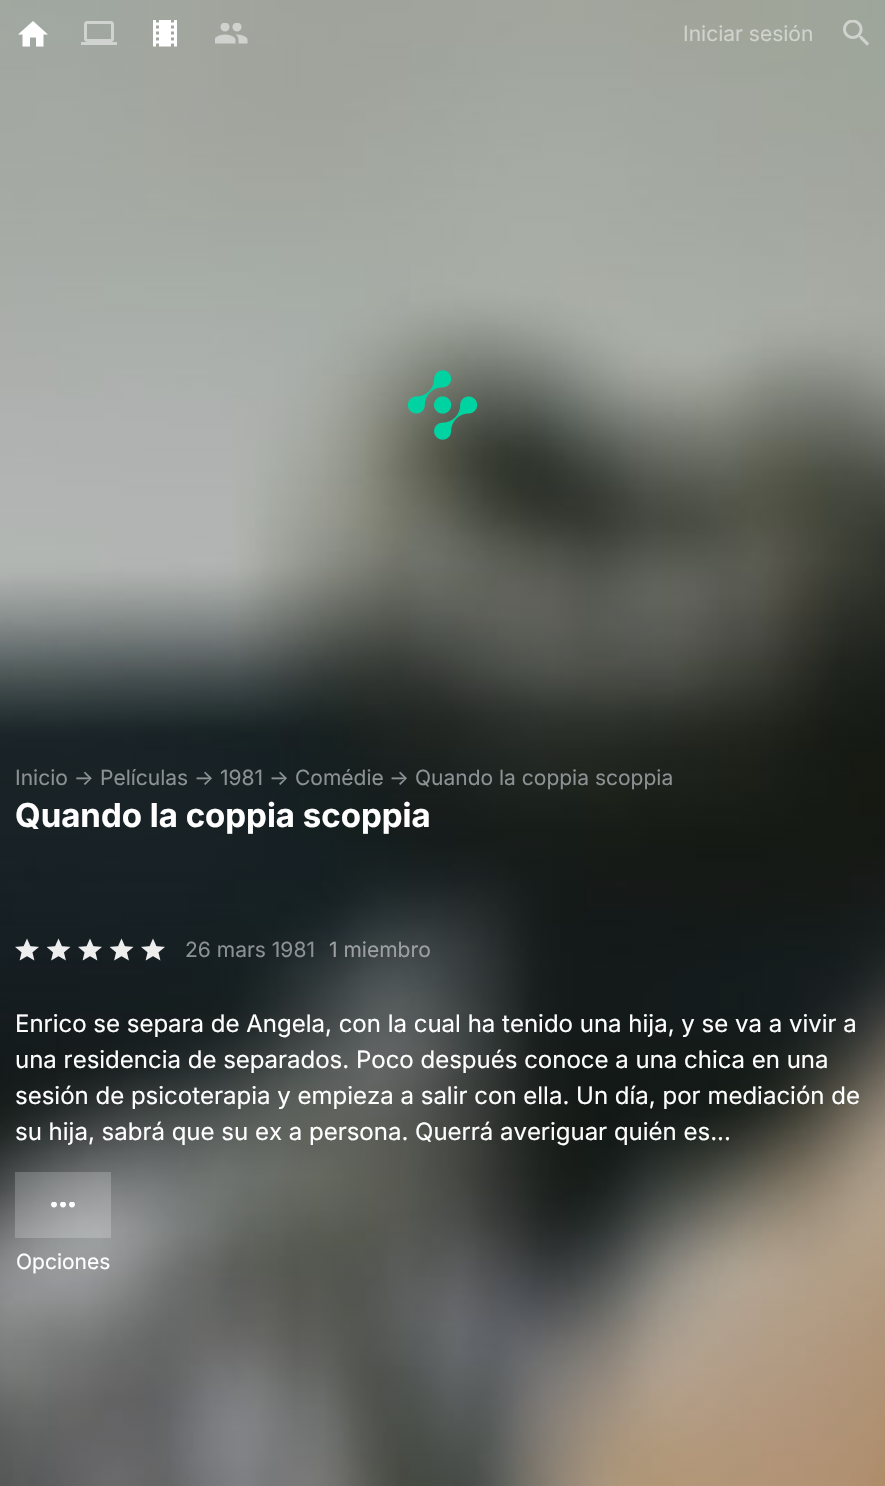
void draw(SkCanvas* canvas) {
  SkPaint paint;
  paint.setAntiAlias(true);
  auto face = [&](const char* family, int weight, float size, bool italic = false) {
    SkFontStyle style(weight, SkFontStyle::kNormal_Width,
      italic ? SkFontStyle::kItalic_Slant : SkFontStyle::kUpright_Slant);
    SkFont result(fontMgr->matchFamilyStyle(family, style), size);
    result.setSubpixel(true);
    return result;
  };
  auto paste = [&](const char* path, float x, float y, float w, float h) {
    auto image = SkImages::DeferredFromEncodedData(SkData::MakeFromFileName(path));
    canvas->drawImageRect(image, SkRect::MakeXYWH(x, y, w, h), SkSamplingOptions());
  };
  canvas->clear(0xffffffff);
  paste("img/1.png", 0, 0, 885, 1486);
  paste("img/2.png", 18, 21, 30, 26);
  paste("img/3.png", 81, 21, 36, 24);
  paste("img/4.png", 153, 20, 24, 27);
  paste("img/5.png", 215, 23, 33, 21);
  paste("img/6.png", 843, 20, 26, 26);
  paste("img/7.png", 407, 370, 71, 70);
  paste("img/8.png", 15, 938, 24, 23);
  paste("img/9.png", 47, 938, 24, 23);
  paste("img/10.png", 78, 938, 24, 23);
  paste("img/11.png", 110, 938, 24, 23);
  paste("img/12.png", 141, 938, 24, 23);
  paint.setColor(0x33ffffff);
  canvas->drawRect(SkRect::MakeXYWH(15, 1172, 96, 66), paint);
  paste("img/13.png", 51, 1202, 24, 6);
  auto f0 = face("Inter", 400, 21);
  paint.setColor(0xffd0d2cd);
  canvas->drawString("Iniciar sesión", 683, 41, f0, paint);
  paint.setColor(0xff8c9193);
  {
    const struct { const char* s; float x, y; } items[] = {
      {"Inicio →", 15, 785},
      {"Películas", 100, 785},
      {"→ 1981", 194, 785},
      {"→", 269, 785},
      {"Comédie", 295, 785},
      {"→", 389, 785},
      {"Quando la coppia scoppia", 415, 785},
    };
    for (auto [s, x, y] : items) {
      canvas->drawString(s, x, y, f0, paint);
    }
  }
  auto f1 = face("Inter", 700, 33);
  paint.setColor(0xffffffff);
  canvas->drawString("Quando la coppia scoppia", 15, 827, f1, paint);
  paint.setColor(0xff8c9193);
  canvas->drawString("26 mars 1981", 185, 957, f0, paint);
  paint.setColor(0xff9ca0a1);
  canvas->drawString("1 miembro", 329, 957, f0, paint);
  auto f2 = face("Inter", 400, 24);
  paint.setColor(0xffffffff);
  {
    const struct { const char* s; float x, y; } items[] = {
      {"Enrico se separa de Angela, con la cual ha tenido una hija, y se va a vivir a", 15, 1032},
      {"una residencia de separados. Poco después conoce a una chica en una", 15, 1068},
      {"sesión de psicoterapia y empieza a salir con ella. Un día, por mediación de", 15, 1104},
      {"su hija, sabrá que su ex a persona. Querrá averiguar quién es...", 15, 1140},
    };
    for (auto [s, x, y] : items) {
      canvas->drawString(s, x, y, f2, paint);
    }
  }
  canvas->drawString("Opciones", 16, 1269, f0, paint);
}
